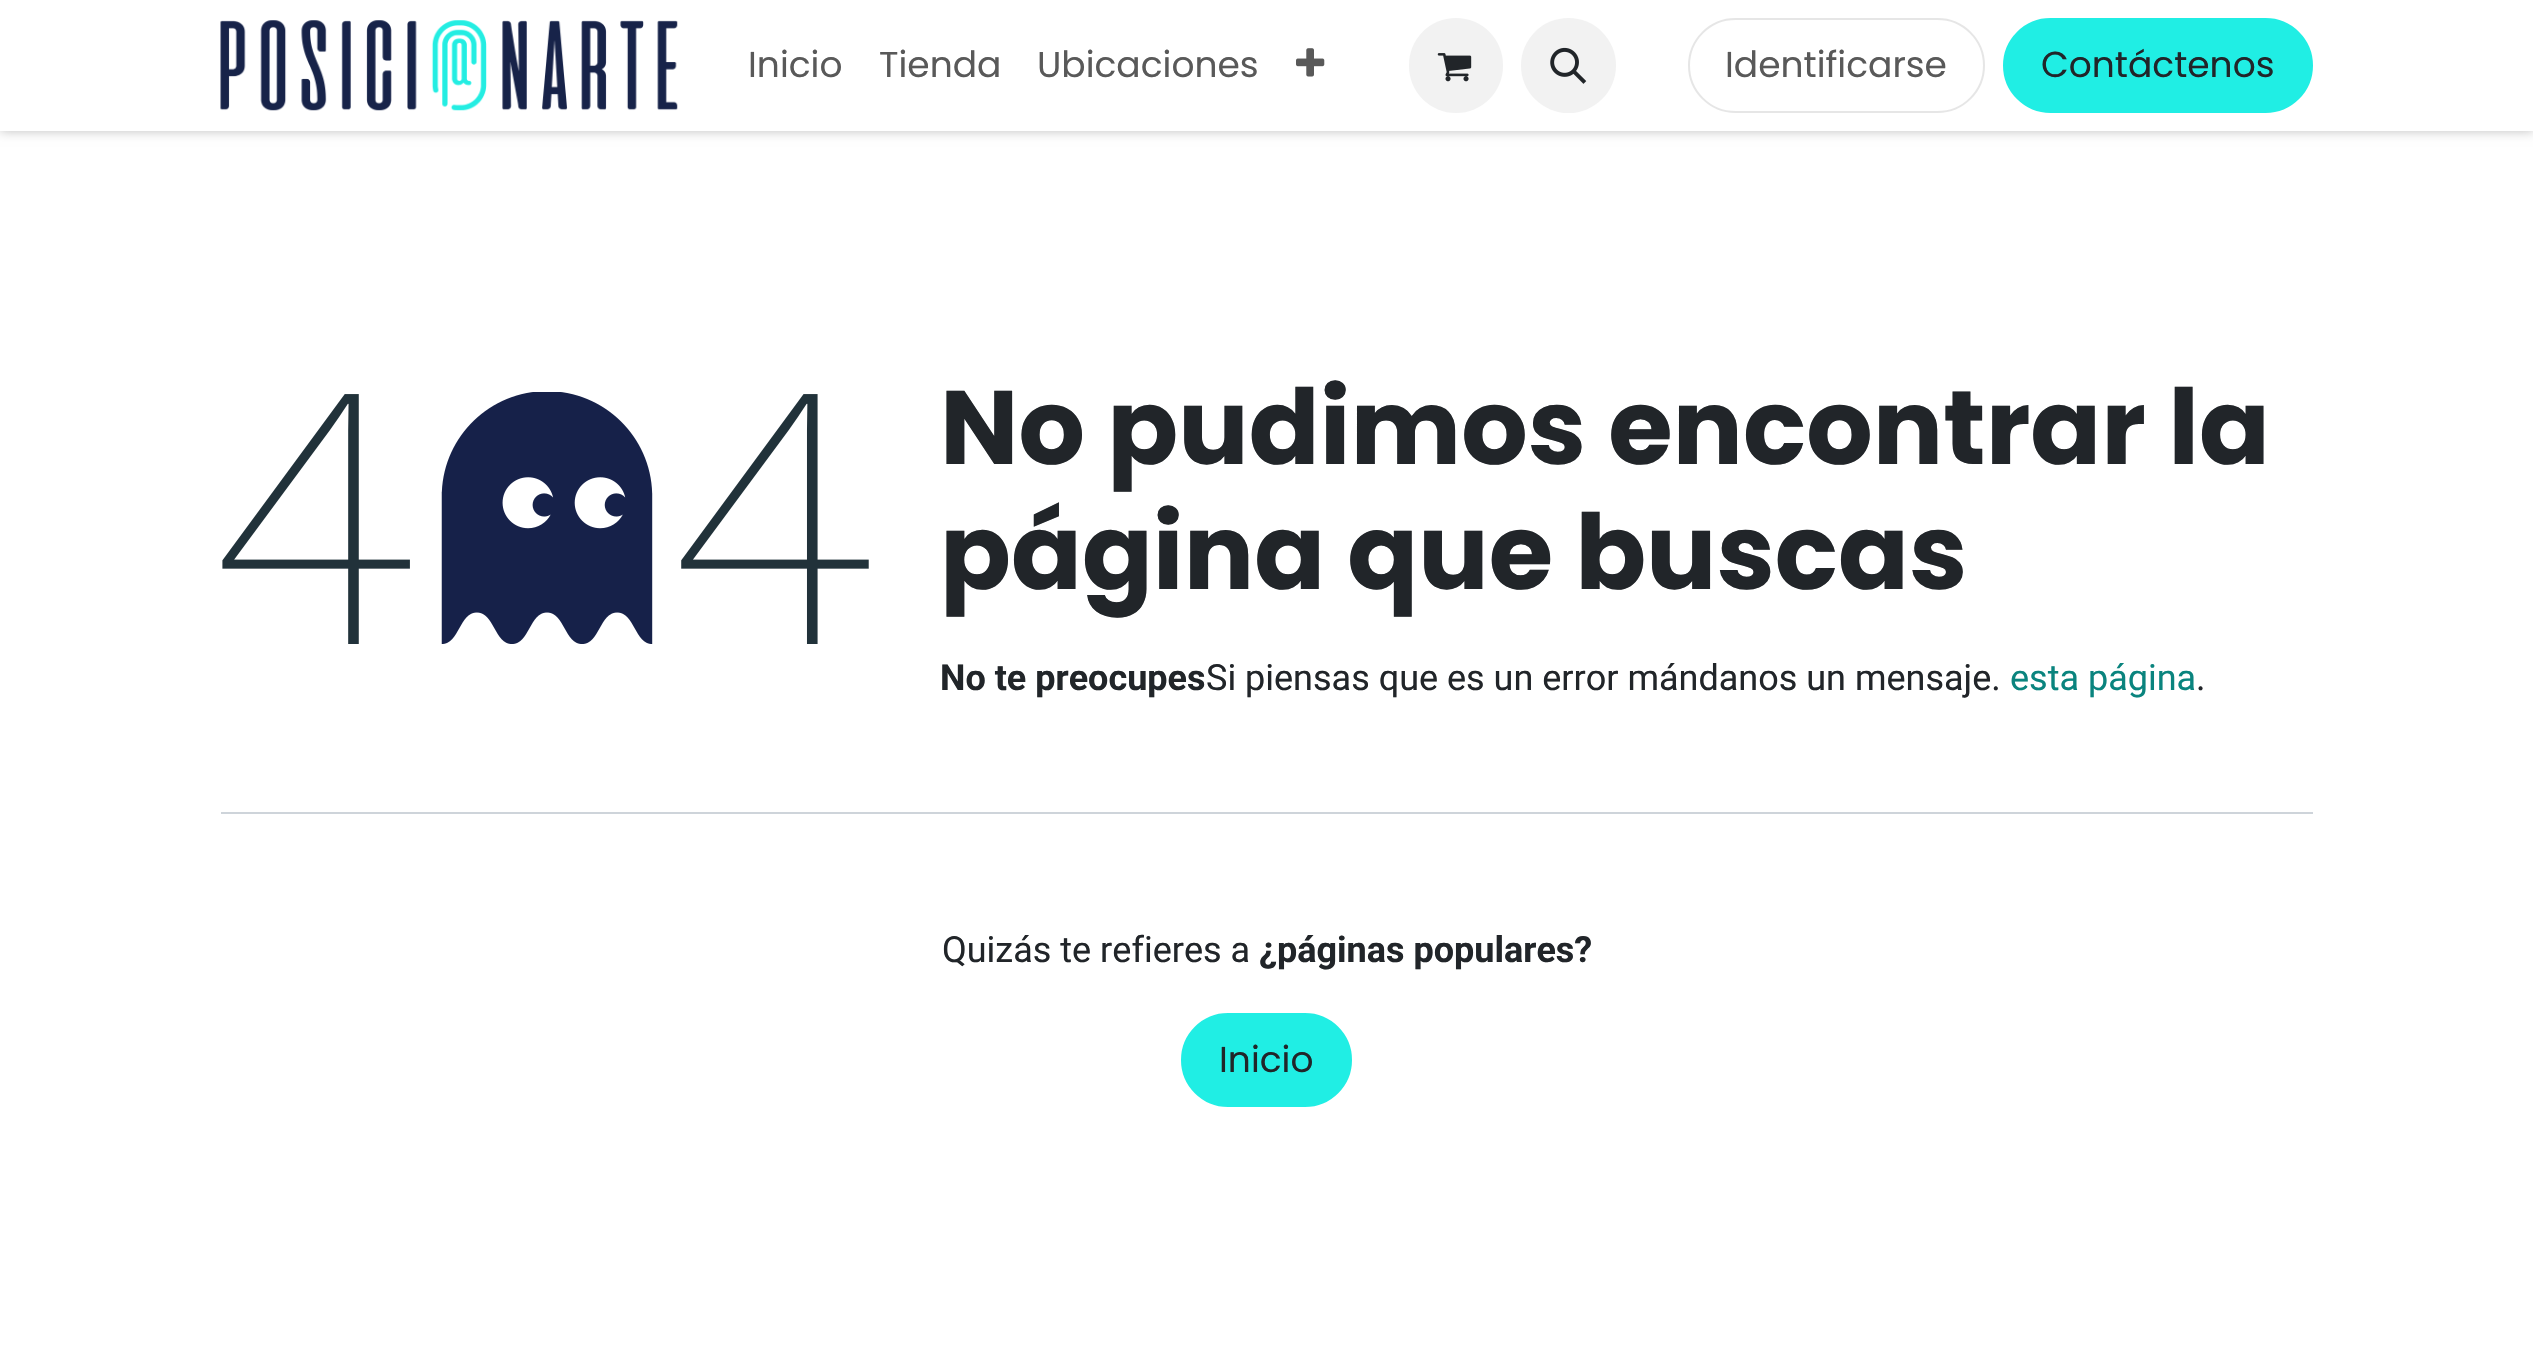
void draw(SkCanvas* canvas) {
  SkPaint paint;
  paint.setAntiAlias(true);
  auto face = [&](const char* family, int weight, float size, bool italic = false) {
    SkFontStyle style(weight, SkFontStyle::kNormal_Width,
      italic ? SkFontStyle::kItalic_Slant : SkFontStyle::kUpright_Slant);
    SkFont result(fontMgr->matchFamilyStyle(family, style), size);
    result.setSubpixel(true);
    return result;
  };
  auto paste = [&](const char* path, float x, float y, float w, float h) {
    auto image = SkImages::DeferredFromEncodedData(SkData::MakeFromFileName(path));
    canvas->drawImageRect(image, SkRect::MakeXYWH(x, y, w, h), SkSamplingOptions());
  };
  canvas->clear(0xffffffff);
  paint.setColor(0x40000000);
  paint.setMaskFilter(SkMaskFilter::MakeBlur(kNormal_SkBlurStyle, 5.5f));
  canvas->drawRect(SkRect::MakeXYWH(0, 0, 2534, 131), paint);
  paint.setMaskFilter(nullptr);
  paint.setColor(0xffffffff);
  canvas->drawRect(SkRect::MakeXYWH(0, 0, 2533, 131), paint);
  paste("img/1.png", 220, 20, 458, 91);
  paste("img/2.png", 1296, 48, 29, 29);
  paint.setColor(0xfff2f2f2);
  canvas->drawRoundRect(SkRect::MakeXYWH(1409, 18, 94, 95), 47, 47, paint);
  paste("img/3.png", 1437, 53, 35, 29);
  canvas->drawCircle(1568.5f, 65.5f, 47.5f, paint);
  paste("img/4.png", 1550, 47, 37, 37);
  paint.setStroke(true);
  paint.setStrokeWidth(2);
  paint.setColor(0xffe6e6e6);
  canvas->drawRoundRect(SkRect::MakeXYWH(1689, 19, 295, 93), 46.5f, 46.5f, paint);
  paint.setStroke(false);
  paint.setColor(0xff20eee4);
  canvas->drawRoundRect(SkRect::MakeXYWH(2004, 19, 308, 93), 46.5f, 46.5f, paint);
  paint.setStroke(true);
  canvas->drawRoundRect(SkRect::MakeXYWH(2004, 19, 308, 93), 46.5f, 46.5f, paint);
  paste("img/5.png", 222, 392, 647, 252);
  paint.setStroke(false);
  paint.setColor(0xffced4da);
  canvas->drawRect(SkRect::MakeXYWH(221, 812, 2092, 2), paint);
  paint.setColor(0xff20eee4);
  canvas->drawRoundRect(SkRect::MakeXYWH(1182, 1014, 169, 92), 46, 46, paint);
  paint.setStroke(true);
  canvas->drawRoundRect(SkRect::MakeXYWH(1182, 1014, 169, 92), 46, 46, paint);
  auto f0 = face("Poppins", 400, 36);
  paint.setStroke(false);
  paint.setColor(0xff595959);
  {
    const struct { const char* s; float x, y; } items[] = {
      {"Inicio", 748, 77},
      {"Tienda", 879, 77},
      {"Ubicaciones", 1037, 77},
      {"Identificarse", 1725, 77},
    };
    for (auto [s, x, y] : items) {
      canvas->drawString(s, x, y, f0, paint);
    }
  }
  paint.setColor(0xff212529);
  canvas->drawString("Contáctenos", 2041, 77, f0, paint);
  auto f1 = face("Poppins", 700, 104.5f);
  canvas->drawString("No pudimos encontrar la", 940, 464, f1, paint);
  canvas->drawString("página que buscas", 940, 589, f1, paint);
  auto f2 = face("Roboto", 700, 36);
  canvas->drawString("No te preocupes", 940, 690, f2, paint);
  auto f3 = face("Roboto", 400, 36);
  canvas->drawString("Si piensas que es un error mándanos un mensaje.", 1206, 690, f3, paint);
  paint.setColor(0xff0a847e);
  canvas->drawString("esta página", 2010, 690, f3, paint);
  paint.setColor(0xff212529);
  canvas->drawString(".", 2196, 690, f3, paint);
  canvas->drawString("Quizás te refieres a", 942, 962, f3, paint);
  canvas->drawString("¿páginas populares?", 1259, 962, f2, paint);
  canvas->drawString("Inicio", 1219, 1072, f0, paint);
}
